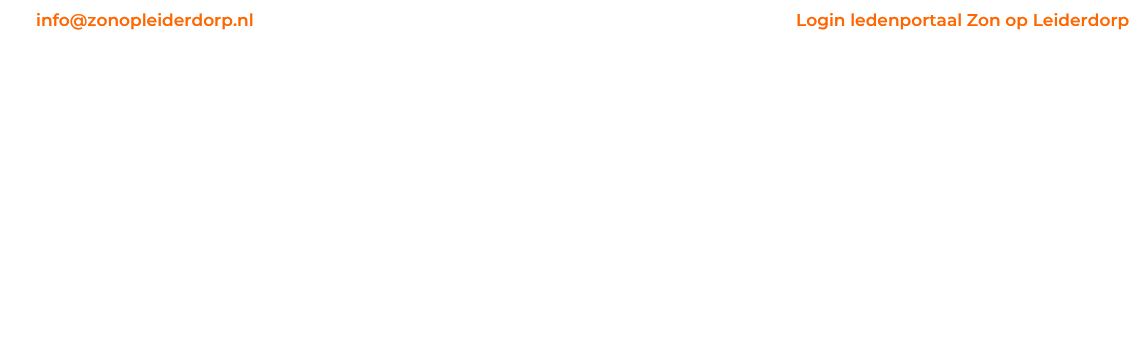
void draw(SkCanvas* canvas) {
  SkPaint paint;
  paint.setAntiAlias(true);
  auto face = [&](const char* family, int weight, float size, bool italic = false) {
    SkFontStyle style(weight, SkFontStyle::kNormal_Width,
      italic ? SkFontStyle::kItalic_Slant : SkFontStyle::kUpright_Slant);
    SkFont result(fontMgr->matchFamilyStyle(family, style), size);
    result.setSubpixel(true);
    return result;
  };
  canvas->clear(0xffffffff);
  auto f0 = face("Montserrat", 600, 17);
  paint.setColor(0xffff6600);
  canvas->drawString("info@zonopleiderdorp.nl", 36, 26, f0, paint);
  canvas->drawString("Login ledenportaal Zon op Leiderdorp", 796, 26, f0, paint);
}
